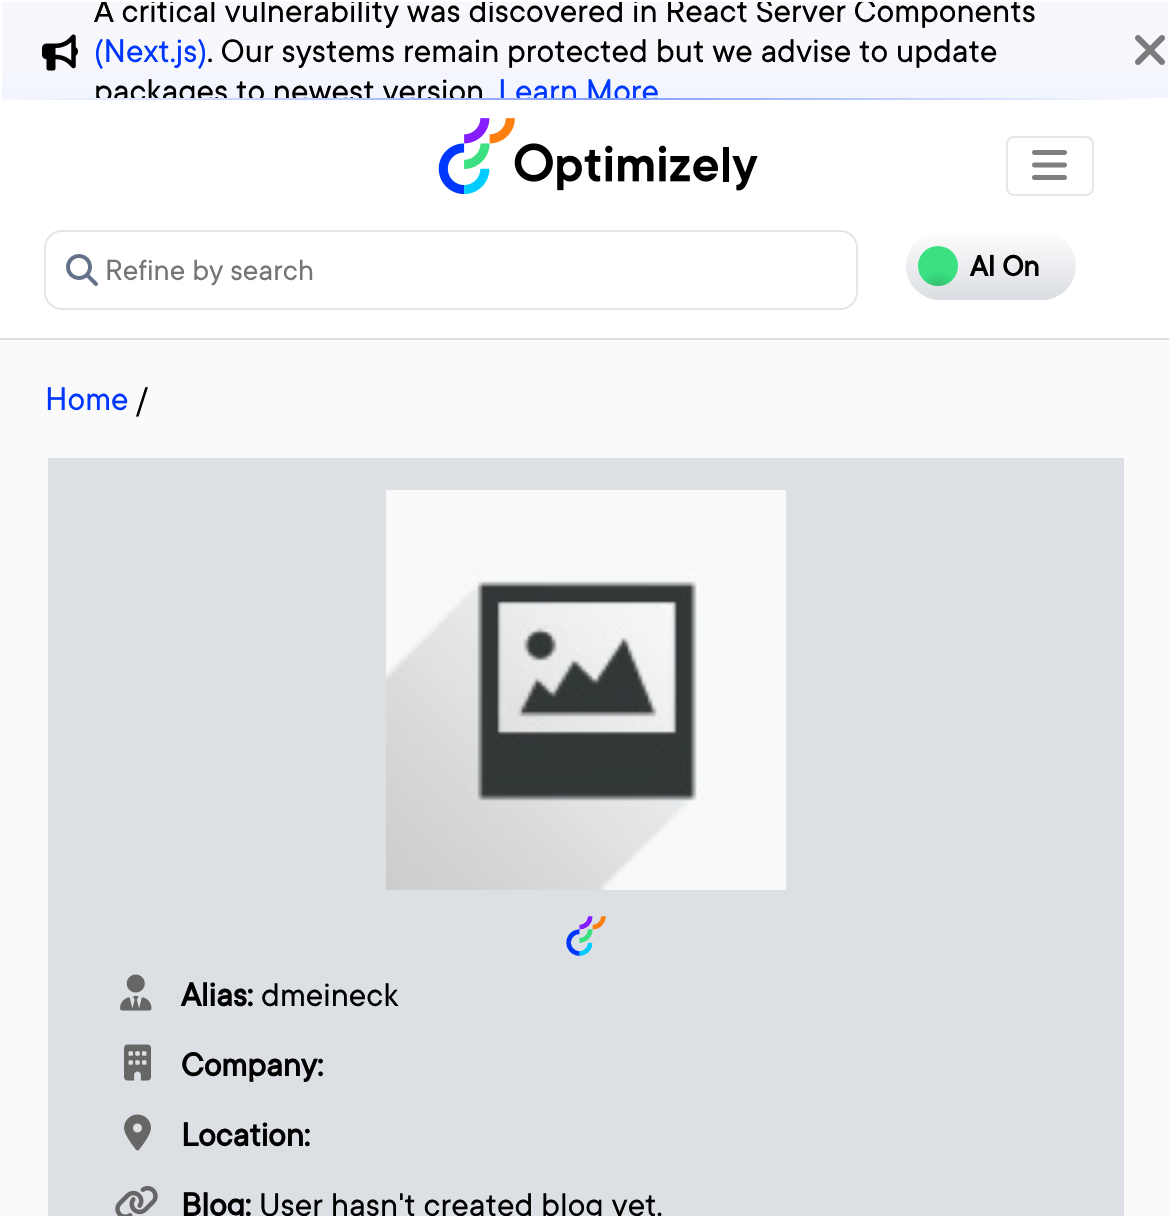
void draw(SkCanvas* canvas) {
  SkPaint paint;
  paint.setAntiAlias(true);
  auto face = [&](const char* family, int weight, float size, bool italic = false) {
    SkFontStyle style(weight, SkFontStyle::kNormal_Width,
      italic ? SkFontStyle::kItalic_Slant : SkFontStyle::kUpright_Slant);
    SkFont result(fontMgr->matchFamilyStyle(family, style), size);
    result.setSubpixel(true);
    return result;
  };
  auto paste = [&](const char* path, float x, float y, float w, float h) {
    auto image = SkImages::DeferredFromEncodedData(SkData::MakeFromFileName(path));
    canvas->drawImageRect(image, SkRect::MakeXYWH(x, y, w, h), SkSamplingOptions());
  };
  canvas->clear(0xfffafafa);
  paint.setColor(0xffffffff);
  canvas->drawRect(SkRect::MakeXYWH(0, 0, 1169, 338), paint);
  paste("img/1.png", 2, 98, 1145, 2);
  {
    const SkColor colors[] = {0xfff8f8fc, 0xfff0f3ff};
    const float stops[] = {0.42f, 1};
    const SkPoint ends[] = {{585, 1.9f}, {585, 117}};
    paint.setShader(SkGradientShader::MakeLinear(ends, colors, stops, 2, SkTileMode::kClamp));
    paint.setAlpha(255);
  }
  canvas->drawRect(SkRect::MakeXYWH(2, 2, 1166, 96), paint);
  paste("img/2.png", 42, 34, 36, 37);
  paste("img/3.png", 1135, 35, 30, 30);
  paint.setShader(nullptr);
  paint.setColor(0xffdddddd);
  canvas->drawRect(SkRect::MakeXYWH(0, 338, 1169, 2), paint);
  paste("img/4.png", 438, 118, 320, 76);
  paint.setStroke(true);
  paint.setStrokeWidth(2);
  paint.setColor(0xffe6e6e6);
  canvas->drawRoundRect(SkRect::MakeXYWH(1007, 137, 86, 58), 7, 7, paint);
  paste("img/5.png", 1032, 150, 35, 30);
  paint.setColor(0xffe5e5e5);
  canvas->drawRoundRect(SkRect::MakeXYWH(45, 231, 812, 78), 17, 17, paint);
  paint.setStroke(false);
  paint.setColor(0xffffffff);
  canvas->drawRoundRect(SkRect::MakeXYWH(46, 232, 810, 76), 16, 16, paint);
  paste("img/6.png", 66, 254, 32, 32);
  {
    const SkColor colors[] = {0xfffdfdfe, 0xffdadde1};
    const float stops[] = {0, 1};
    const SkPoint ends[] = {{991, 232}, {991, 300}};
    paint.setShader(SkGradientShader::MakeLinear(ends, colors, stops, 2, SkTileMode::kClamp));
    paint.setAlpha(255);
  }
  canvas->drawRoundRect(SkRect::MakeXYWH(906, 232, 170, 68), 34, 34, paint);
  {
    const SkColor colors[] = {0xff2fb367, 0xff3be081};
    const float stops[] = {0, 0.44f};
    paint.setShader(SkGradientShader::MakeRadial({938, 291}, 45, colors, stops, 2, SkTileMode::kClamp));
    paint.setAlpha(255);
  }
  canvas->drawCircle(938, 266, 20, paint);
  paint.setShader(nullptr);
  paint.setColor(0xffdcdfe3);
  canvas->drawRect(SkRect::MakeXYWH(48, 458, 1076, 758), paint);
  paste("img/7.png", 386, 490, 400, 400);
  paste("img/8.png", 566, 916, 40, 40);
  paste("img/9.png", 120, 974, 32, 37);
  paste("img/10.png", 124, 1044, 27, 37);
  paste("img/11.png", 124, 1114, 27, 37);
  paste("img/12.png", 115, 1186, 43, 30);
  canvas->save();
  canvas->clipRect(SkRect::MakeXYWH(2, 2, 1166, 96));
  auto f0 = face("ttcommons", 400, 36);
  paint.setColor(0xff000000);
  canvas->drawString("A critical vulnerability was discovered in React Server Components", 94, 22, f0, paint);
  canvas->restore();
  paint.setColor(0xff0037ff);
  canvas->drawString("(Next.js)", 94, 62, f0, paint);
  paint.setColor(0xff000000);
  canvas->drawString(". Our systems remain protected but we advise to update", 207, 62, f0, paint);
  canvas->save();
  canvas->clipRect(SkRect::MakeXYWH(2, 2, 1166, 96));
  canvas->drawString("packages to newest version", 94, 102, f0, paint);
  paint.setColor(0xff0037ff);
  canvas->drawString("Learn More", 498, 102, f0, paint);
  canvas->restore();
  auto f1 = face("ttcommons", 400, 32);
  paint.setColor(0xff757575);
  canvas->drawString("Refine by search", 105, 280, f1, paint);
  auto f2 = face("ttcommons", 700, 32);
  paint.setColor(0xff000000);
  canvas->drawString("AI On", 970, 276, f2, paint);
  paint.setColor(0xff0037ff);
  canvas->drawString("Home", 45, 410, f0, paint);
  paint.setColor(0xff000000);
  canvas->drawString("/", 136, 410, f0, paint);
  auto f3 = face("ttcommons", 700, 36);
  canvas->drawString("Alias:", 181, 1006, f3, paint);
  canvas->drawString("dmeineck", 261, 1006, f0, paint);
  {
    const struct { const char* s; float x, y; } items[] = {
      {"Company:", 181, 1076},
      {"Location:", 181, 1146},
      {"Blog:", 181, 1216},
    };
    for (auto [s, x, y] : items) {
      canvas->drawString(s, x, y, f3, paint);
    }
  }
  canvas->drawString("User hasn't created blog yet.", 259, 1216, f0, paint);
}
